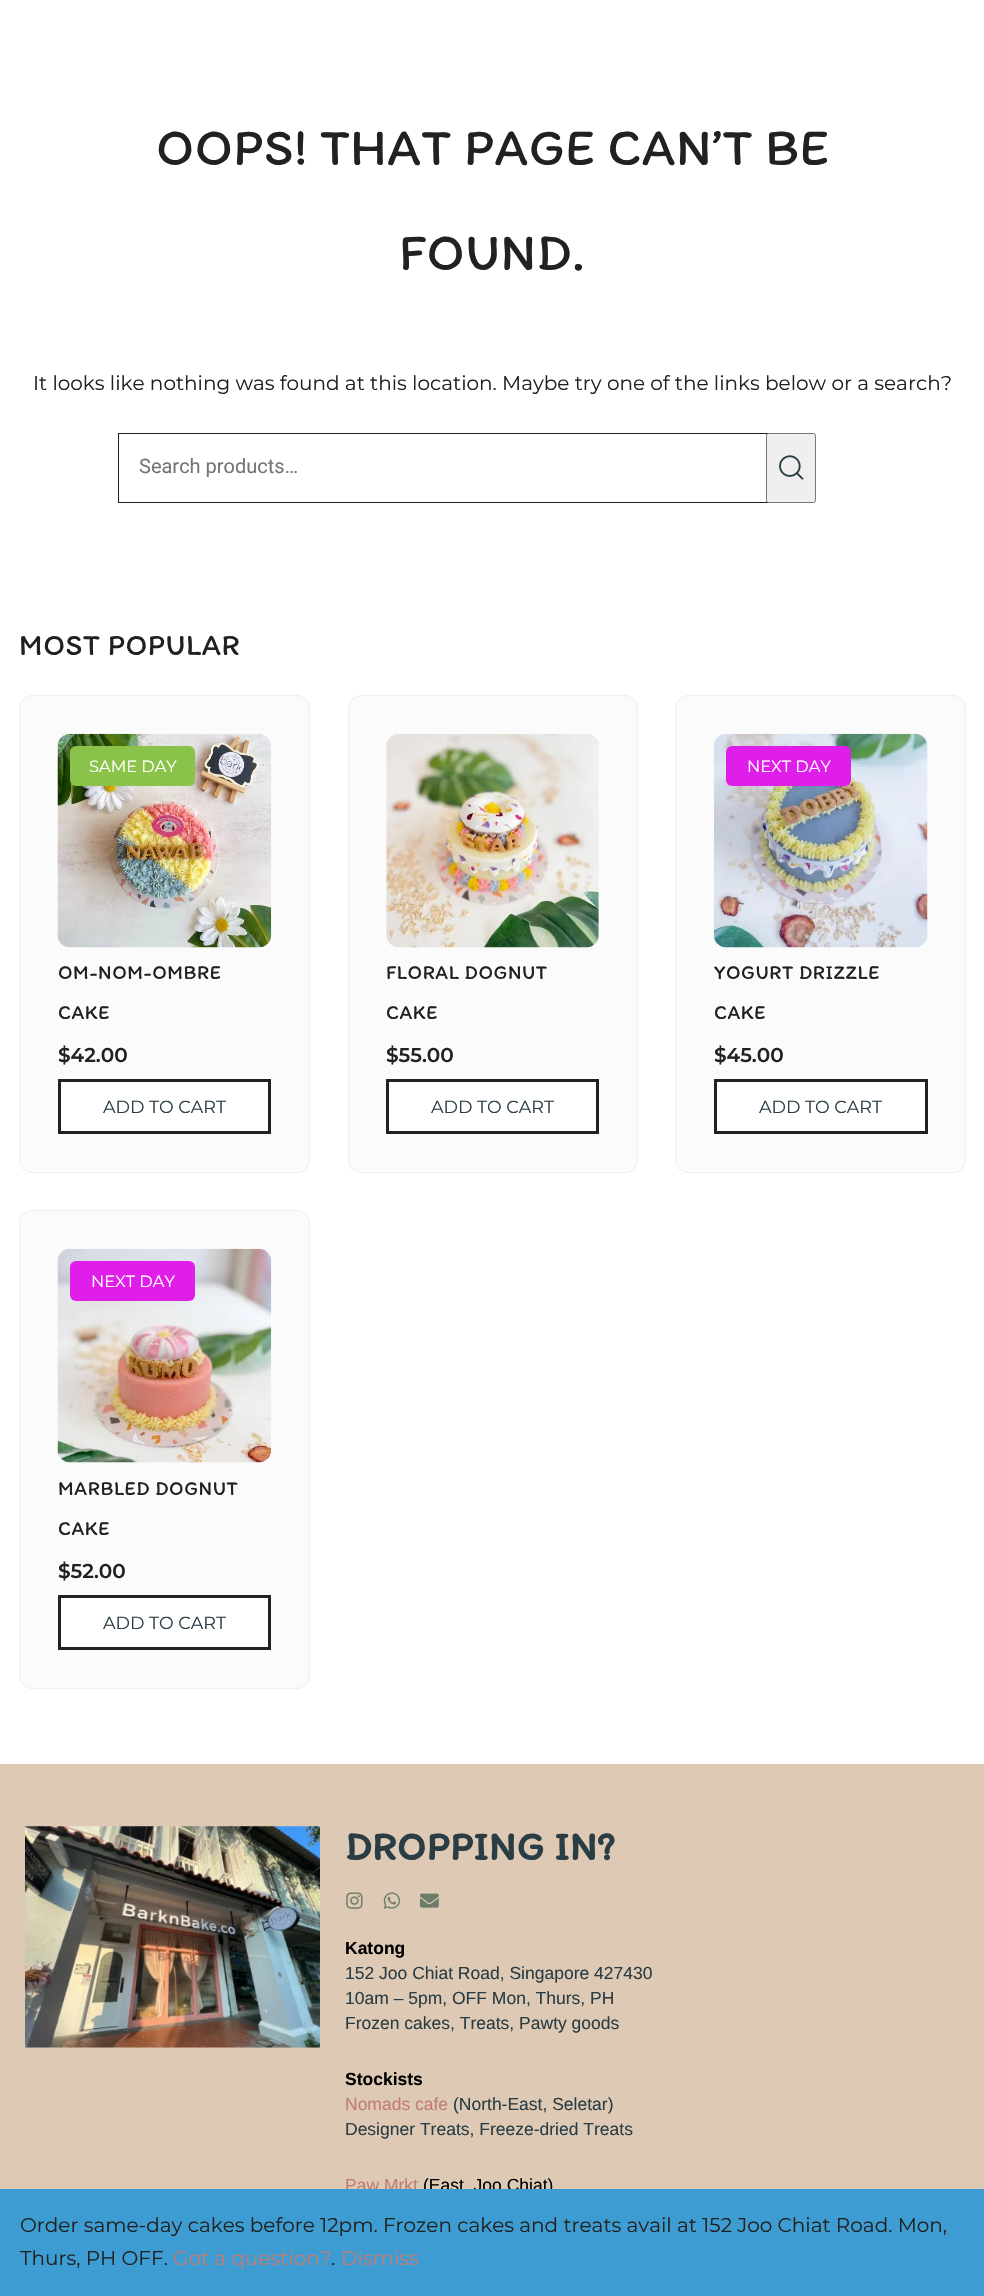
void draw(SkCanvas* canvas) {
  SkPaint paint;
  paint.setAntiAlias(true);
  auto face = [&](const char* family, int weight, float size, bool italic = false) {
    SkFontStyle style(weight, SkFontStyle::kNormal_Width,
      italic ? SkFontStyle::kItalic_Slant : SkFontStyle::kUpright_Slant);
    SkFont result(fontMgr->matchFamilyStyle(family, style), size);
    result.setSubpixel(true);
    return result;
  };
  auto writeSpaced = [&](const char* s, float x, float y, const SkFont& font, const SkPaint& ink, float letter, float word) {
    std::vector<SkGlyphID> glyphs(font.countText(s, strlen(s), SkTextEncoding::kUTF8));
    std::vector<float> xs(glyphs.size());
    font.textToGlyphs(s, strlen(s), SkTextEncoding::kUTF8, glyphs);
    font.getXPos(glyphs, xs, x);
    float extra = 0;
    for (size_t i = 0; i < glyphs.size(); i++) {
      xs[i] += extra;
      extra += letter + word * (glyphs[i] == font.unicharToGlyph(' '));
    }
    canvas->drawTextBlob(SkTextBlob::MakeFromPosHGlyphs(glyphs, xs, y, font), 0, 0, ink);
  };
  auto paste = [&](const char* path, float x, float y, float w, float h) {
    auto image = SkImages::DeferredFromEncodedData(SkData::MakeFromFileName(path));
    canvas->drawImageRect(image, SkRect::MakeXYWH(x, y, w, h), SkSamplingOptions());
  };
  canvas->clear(0xffffffff);
  paint.setStroke(true);
  paint.setStrokeWidth(1);
  paint.setColor(0xff212121);
  canvas->drawRect(SkRect::MakeXYWH(118.5f, 433.5f, 654, 69), paint);
  paint.setStroke(false);
  paint.setColor(0xffefefef);
  canvas->drawRoundRect(SkRect::MakeXYWH(766.5f, 433.5f, 49, 69), 2, 2, paint);
  paint.setStroke(true);
  paint.setColor(0xff767676);
  canvas->drawRoundRect(SkRect::MakeXYWH(766.5f, 433.5f, 49, 69), 2, 2, paint);
  paste("img/1.png", 779, 455, 25, 25);
  paint.setStroke(false);
  paint.setColor(0xfffbfbfb);
  canvas->drawRoundRect(SkRect::MakeXYWH(19.5f, 695.5f, 290, 477), 12.5f, 12.5f, paint);
  paint.setStroke(true);
  paint.setColor(0xffeeeeee);
  canvas->drawRoundRect(SkRect::MakeXYWH(19.5f, 695.5f, 290, 477), 12.5f, 12.5f, paint);
  paste("img/2.png", 57, 733, 215, 215);
  paint.setStroke(false);
  paint.setColor(0xff8bc34a);
  canvas->drawRoundRect(SkRect::MakeXYWH(70, 746, 125, 40), 6, 6, paint);
  paint.setColor(0xffffffff);
  canvas->drawRect(SkRect::MakeXYWH(59.5f, 1080.5f, 210, 52), paint);
  paint.setStroke(true);
  paint.setStrokeWidth(3);
  paint.setColor(0xff212121);
  canvas->drawRect(SkRect::MakeXYWH(59.5f, 1080.5f, 210, 52), paint);
  paint.setStroke(false);
  paint.setColor(0xfffbfbfb);
  canvas->drawRoundRect(SkRect::MakeXYWH(348.5f, 695.5f, 289, 477), 12.5f, 12.5f, paint);
  paint.setStroke(true);
  paint.setStrokeWidth(1);
  paint.setColor(0xffeeeeee);
  canvas->drawRoundRect(SkRect::MakeXYWH(348.5f, 695.5f, 289, 477), 12.5f, 12.5f, paint);
  paste("img/3.png", 386, 734, 213, 214);
  paint.setStroke(false);
  paint.setColor(0xffffffff);
  canvas->drawRect(SkRect::MakeXYWH(387.5f, 1080.5f, 210, 52), paint);
  paint.setStroke(true);
  paint.setStrokeWidth(3);
  paint.setColor(0xff212121);
  canvas->drawRect(SkRect::MakeXYWH(387.5f, 1080.5f, 210, 52), paint);
  paint.setStroke(false);
  paint.setColor(0xfffbfbfb);
  canvas->drawRoundRect(SkRect::MakeXYWH(675.5f, 695.5f, 290, 477), 12.5f, 12.5f, paint);
  paint.setStroke(true);
  paint.setStrokeWidth(1);
  paint.setColor(0xffeeeeee);
  canvas->drawRoundRect(SkRect::MakeXYWH(675.5f, 695.5f, 290, 477), 12.5f, 12.5f, paint);
  paste("img/4.png", 713, 733, 215, 215);
  paint.setStroke(false);
  paint.setColor(0xffdf1ee9);
  canvas->drawRoundRect(SkRect::MakeXYWH(726, 746, 125, 40), 6, 6, paint);
  paint.setColor(0xffffffff);
  canvas->drawRect(SkRect::MakeXYWH(715.5f, 1080.5f, 211, 52), paint);
  paint.setStroke(true);
  paint.setStrokeWidth(3);
  paint.setColor(0xff212121);
  canvas->drawRect(SkRect::MakeXYWH(715.5f, 1080.5f, 211, 52), paint);
  paint.setStroke(false);
  paint.setColor(0xfffbfbfb);
  canvas->drawRoundRect(SkRect::MakeXYWH(19.5f, 1210.5f, 290, 478), 12.5f, 12.5f, paint);
  paint.setStroke(true);
  paint.setStrokeWidth(1);
  paint.setColor(0xffeeeeee);
  canvas->drawRoundRect(SkRect::MakeXYWH(19.5f, 1210.5f, 290, 478), 12.5f, 12.5f, paint);
  paste("img/5.png", 57, 1248, 215, 215);
  paint.setStroke(false);
  paint.setColor(0xffdf1ee9);
  canvas->drawRoundRect(SkRect::MakeXYWH(70, 1261, 125, 40), 6, 6, paint);
  paint.setColor(0xffffffff);
  canvas->drawRect(SkRect::MakeXYWH(59.5f, 1596.5f, 210, 52), paint);
  paint.setStroke(true);
  paint.setStrokeWidth(3);
  paint.setColor(0xff212121);
  canvas->drawRect(SkRect::MakeXYWH(59.5f, 1596.5f, 210, 52), paint);
  paint.setStroke(false);
  paint.setColor(0xffddc9b4);
  canvas->drawRect(SkRect::MakeXYWH(0, 1764, 984, 425), paint);
  paste("img/6.png", 25, 1826, 295, 222);
  paste("img/7.png", 346, 1892, 17, 17);
  paste("img/8.png", 383, 1892, 18, 17);
  paste("img/9.png", 420, 1893, 19, 15);
  auto f0 = face("Itim", 400, 52.5f);
  paint.setColor(0xff212121);
  writeSpaced("OOPS! THAT PAGE CAN’T BE", 156, 165, f0, paint, 0.6f, 0);
  writeSpaced("FOUND.", 399, 270, f0, paint, 0.6f, 0);
  auto f1 = face("Montserrat", 400, 20);
  canvas->drawString("It looks like nothing was found at this location. Maybe try one of the links below or a search?", 33, 390, f1, paint);
  auto f2 = face("Roboto", 400, 20);
  paint.setColor(0xff757575);
  canvas->drawString("Search products…", 139, 473, f2, paint);
  auto f3 = face("Itim", 400, 30);
  paint.setColor(0xff212121);
  writeSpaced("MOST POPULAR", 19, 655, f3, paint, 0.6f, 0);
  auto f4 = face("Montserrat", 400, 16.25f);
  paint.setColor(0xffffffff);
  canvas->drawString("SAME DAY", 89, 772, f4, paint);
  auto f5 = face("Itim", 400, 20);
  paint.setColor(0xff212121);
  writeSpaced("OM-NOM-OMBRE", 58, 979, f5, paint, 0.6f, 0);
  writeSpaced("CAKE", 58, 1019, f5, paint, 0.6f, 0);
  auto f6 = face("Montserrat", 600, 20);
  canvas->drawString("$42.00", 58, 1062, f6, paint);
  auto f7 = face("Montserrat", 400, 17.5f);
  paint.setColor(0xff2a3d45);
  canvas->drawString("ADD TO CART", 103, 1113, f7, paint);
  paint.setColor(0xff212121);
  writeSpaced("FLORAL DOGNUT", 386, 979, f5, paint, 0.6f, 0);
  writeSpaced("CAKE", 386, 1019, f5, paint, 0.6f, 0);
  canvas->drawString("$55.00", 386, 1062, f6, paint);
  paint.setColor(0xff2a3d45);
  canvas->drawString("ADD TO CART", 431, 1113, f7, paint);
  paint.setColor(0xffffffff);
  canvas->drawString("NEXT DAY", 747, 772, f4, paint);
  paint.setColor(0xff212121);
  writeSpaced("YOGURT DRIZZLE", 714, 979, f5, paint, 0.6f, 0);
  writeSpaced("CAKE", 714, 1019, f5, paint, 0.6f, 0);
  canvas->drawString("$45.00", 714, 1062, f6, paint);
  paint.setColor(0xff2a3d45);
  canvas->drawString("ADD TO CART", 759, 1113, f7, paint);
  paint.setColor(0xffffffff);
  canvas->drawString("NEXT DAY", 91, 1287, f4, paint);
  paint.setColor(0xff212121);
  writeSpaced("MARBLED DOGNUT", 58, 1495, f5, paint, 0.6f, 0);
  writeSpaced("CAKE", 58, 1535, f5, paint, 0.6f, 0);
  canvas->drawString("$52.00", 58, 1578, f6, paint);
  paint.setColor(0xff2a3d45);
  canvas->drawString("ADD TO CART", 103, 1629, f7, paint);
  auto f8 = face("Itim", 700, 40);
  writeSpaced("DROPPING IN?", 345, 1860, f8, paint, 0.6f, 0);
  auto f9 = face("Liberation Sans", 700, 17.5f);
  paint.setColor(0xff000000);
  canvas->drawString("Katong", 345, 1954, f9, paint);
  auto f10 = face("Liberation Sans", 400, 17.5f);
  paint.setColor(0xff2a3d45);
  {
    const struct { const char* s; float x, y; } items[] = {
      {"152 Joo Chiat Road, Singapore 427430", 345, 1979},
      {"10am – 5pm, OFF Mon, Thurs, PH", 345, 2004},
      {"Frozen cakes, Treats, Pawty goods", 345, 2029},
    };
    for (auto [s, x, y] : items) {
      canvas->drawString(s, x, y, f10, paint);
    }
  }
  paint.setColor(0xff000000);
  canvas->drawString("Stockists", 345, 2085, f9, paint);
  paint.setColor(0xffc17c74);
  canvas->drawString("Nomads cafe", 345, 2110, f10, paint);
  paint.setColor(0xff2a3d45);
  canvas->drawString("(North-East, Seletar)", 453, 2110, f10, paint);
  canvas->drawString("Designer Treats, Freeze-dried Treats", 345, 2135, f10, paint);
  paint.setColor(0xffc17c74);
  canvas->drawString("Paw Mrkt", 345, 2191, f10, paint);
  paint.setColor(0xff000000);
  canvas->drawString("(East, Joo Chiat)", 423, 2191, f10, paint);
  paint.setColor(0xff3d9cd2);
  canvas->drawRect(SkRect::MakeXYWH(0, 2189, 984, 107), paint);
  paint.setColor(0xff212121);
  canvas->drawString("Order same-day cakes before 12pm. Frozen cakes and treats avail at 152 Joo Chiat Road. Mon,", 20, 2232, f1, paint);
  canvas->drawString("Thurs, PH OFF.", 20, 2265, f1, paint);
  paint.setColor(0xffc17c74);
  canvas->drawString("Got a question?", 173, 2265, f1, paint);
  paint.setColor(0xff212121);
  canvas->drawString(".", 331, 2265, f1, paint);
  paint.setColor(0xffc17c74);
  canvas->drawString("Dismiss", 341, 2265, f1, paint);
}
